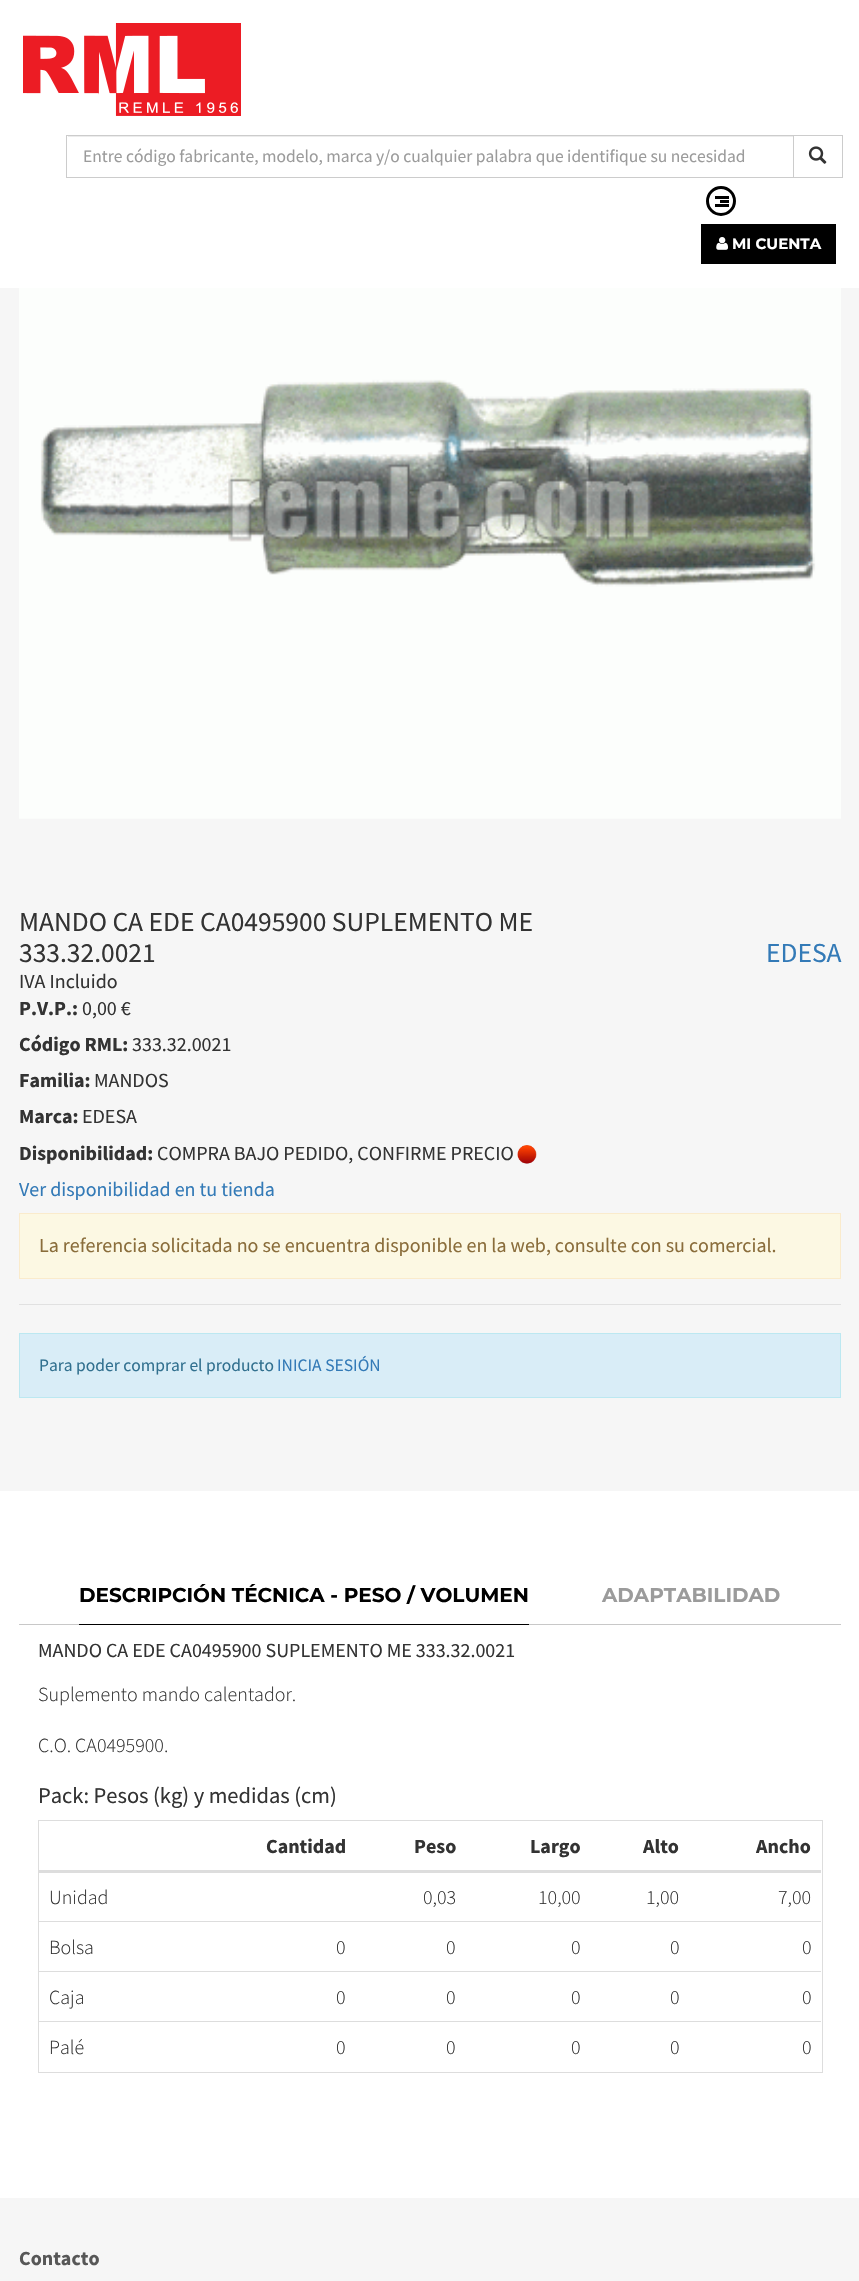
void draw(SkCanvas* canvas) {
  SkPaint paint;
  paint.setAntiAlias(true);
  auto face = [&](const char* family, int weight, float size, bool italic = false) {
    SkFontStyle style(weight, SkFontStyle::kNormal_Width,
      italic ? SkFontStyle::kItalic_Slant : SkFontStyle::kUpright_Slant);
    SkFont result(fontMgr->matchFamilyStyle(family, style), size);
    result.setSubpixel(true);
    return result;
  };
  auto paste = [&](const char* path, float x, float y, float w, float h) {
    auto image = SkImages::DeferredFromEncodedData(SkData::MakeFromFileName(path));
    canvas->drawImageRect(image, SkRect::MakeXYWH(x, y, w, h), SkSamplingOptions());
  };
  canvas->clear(0xffffffff);
  paste("img/1.png", 23, 23, 218, 93);
  paint.setColor(0xffececec);
  canvas->drawRect(SkRect::MakeXYWH(68, 136, 725, 1), paint);
  paint.setStroke(true);
  paint.setStrokeWidth(1);
  paint.setColor(0xffcccccc);
  canvas->drawRect(SkRect::MakeXYWH(66.5f, 135.5f, 727, 42), paint);
  canvas->drawRect(SkRect::MakeXYWH(793.5f, 135.5f, 49, 42), paint);
  paste("img/2.png", 808, 146, 19, 18);
  paint.setStrokeWidth(3);
  paint.setColor(0xff000000);
  canvas->drawCircle(721, 201, 13.5f, paint);
  paint.setStroke(false);
  {
    const struct { float x, y, w, h; SkColor color; } items[] = {
      {715, 196, 14, 3, 0xff000000},
      {720, 200, 9, 3, 0xff000000},
      {715, 204, 14, 3, 0xff000000},
      {701, 224, 135, 40, 0xff000000},
    };
    for (auto [x, y, w, h, color] : items) {
      paint.setColor(color);
      canvas->drawRect(SkRect::MakeXYWH(x, y, w, h), paint);
    }
  }
  paste("img/3.png", 716, 237, 12, 13);
  paint.setColor(0xfff6f6f6);
  canvas->drawRect(SkRect::MakeXYWH(0, 288, 859, 1203), paint);
  paste("img/4.png", 19, 288, 822, 531);
  paint.setColor(0xffe1e1e1);
  canvas->drawRect(SkRect::MakeXYWH(19, 1304, 822, 1), paint);
  paste("img/5.png", 517, 1145, 20, 19);
  paint.setColor(0xfffcf8e3);
  canvas->drawRect(SkRect::MakeXYWH(19.5f, 1213.5f, 821, 65), paint);
  paint.setStroke(true);
  paint.setStrokeWidth(1);
  paint.setColor(0xfffaebcc);
  canvas->drawRect(SkRect::MakeXYWH(19.5f, 1213.5f, 821, 65), paint);
  paint.setStroke(false);
  paint.setColor(0xffd9edf7);
  canvas->drawRect(SkRect::MakeXYWH(19.5f, 1333.5f, 821, 64), paint);
  paint.setStroke(true);
  paint.setColor(0xffbce8f1);
  canvas->drawRect(SkRect::MakeXYWH(19.5f, 1333.5f, 821, 64), paint);
  paint.setStroke(false);
  paint.setColor(0xffc8c8c8);
  canvas->drawRect(SkRect::MakeXYWH(19, 1624, 822, 1), paint);
  paint.setColor(0xff000000);
  canvas->drawRect(SkRect::MakeXYWH(79, 1624, 450, 1), paint);
  paint.setStroke(true);
  paint.setColor(0xffdddddd);
  canvas->drawRect(SkRect::MakeXYWH(38.5f, 1820.5f, 784, 252), paint);
  paint.setStroke(false);
  {
    const struct { float x, y, w, h; SkColor color; } items[] = {
      {39, 1870, 782, 3, 0xffdddddd},
      {39, 1921, 782, 1, 0xffdddddd},
      {39, 1971, 782, 1, 0xffdddddd},
      {39, 2021, 782, 1, 0xffdddddd},
      {0, 2198, 859, 83, 0xfff6f6f6},
    };
    for (auto [x, y, w, h, color] : items) {
      paint.setColor(color);
      canvas->drawRect(SkRect::MakeXYWH(x, y, w, h), paint);
    }
  }
  auto f0 = face("Source Sans Pro", 400, 17.5f);
  paint.setColor(0xff9b9b9b);
  canvas->drawString("Entre código fabricante, modelo, marca y/o cualquier palabra que identifique su necesidad", 83, 162, f0, paint);
  auto f1 = face("Montserrat", 700, 15);
  paint.setColor(0xffffffff);
  canvas->drawString("MI CUENTA", 732, 249, f1, paint);
  auto f2 = face("Source Sans Pro", 400, 27.5f);
  paint.setColor(0xff333333);
  canvas->drawString("MANDO CA EDE CA0495900 SUPLEMENTO ME", 19, 931, f2, paint);
  canvas->drawString("333.32.0021", 19, 962, f2, paint);
  paint.setColor(0xff337ab7);
  canvas->drawString("EDESA", 766, 962, f2, paint);
  auto f3 = face("Source Sans Pro", 400, 20);
  paint.setColor(0xff333333);
  canvas->drawString("IVA Incluido", 19, 988, f3, paint);
  auto f4 = face("Source Sans Pro", 700, 20);
  canvas->drawString("P.V.P.:", 19, 1015, f4, paint);
  canvas->drawString("0,00 €", 82, 1015, f3, paint);
  canvas->drawString("Código RML:", 19, 1051, f4, paint);
  canvas->drawString("333.32.0021", 132, 1051, f3, paint);
  canvas->drawString("Familia:", 19, 1087, f4, paint);
  canvas->drawString("MANDOS", 94, 1087, f3, paint);
  canvas->drawString("Marca:", 19, 1123, f4, paint);
  canvas->drawString("EDESA", 82, 1123, f3, paint);
  canvas->drawString("Disponibilidad:", 19, 1160, f4, paint);
  canvas->drawString("COMPRA BAJO PEDIDO, CONFIRME PRECIO", 157, 1160, f3, paint);
  paint.setColor(0xff337ab7);
  canvas->drawString("Ver disponibilidad en tu tienda", 19, 1196, f3, paint);
  paint.setColor(0xff8a6d3b);
  canvas->drawString("La referencia solicitada no se encuentra disponible en la web, consulte con su comercial.", 39, 1252, f3, paint);
  paint.setColor(0xff31708f);
  canvas->drawString("Para poder comprar el producto", 39, 1371, f0, paint);
  paint.setColor(0xff337ab7);
  canvas->drawString("INICIA SESIÓN", 277, 1371, f0, paint);
  auto f5 = face("Montserrat", 700, 20);
  paint.setColor(0xff000000);
  canvas->drawString("DESCRIPCIÓN TÉCNICA - PESO / VOLUMEN", 79, 1602, f5, paint);
  paint.setColor(0xff9b9b9b);
  canvas->drawString("ADAPTABILIDAD", 602, 1602, f5, paint);
  paint.setColor(0xff333333);
  canvas->drawString("MANDO CA EDE CA0495900 SUPLEMENTO ME 333.32.0021", 38, 1657, f3, paint);
  auto f6 = face("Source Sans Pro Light", 300, 20);
  canvas->drawString("Suplemento mando calentador.", 38, 1701, f6, paint);
  canvas->drawString("C.O. CA0495900.", 38, 1752, f6, paint);
  auto f7 = face("Source Sans Pro", 400, 22.5f);
  canvas->drawString("Pack: Pesos (kg) y medidas (cm)", 38, 1803, f7, paint);
  {
    const struct { const char* s; float x, y; } items[] = {
      {"Cantidad", 266, 1853},
      {"Peso", 414, 1853},
      {"Largo", 530, 1853},
      {"Alto", 643, 1853},
      {"Ancho", 756, 1853},
    };
    for (auto [s, x, y] : items) {
      canvas->drawString(s, x, y, f4, paint);
    }
  }
  {
    const struct { const char* s; float x, y; } items[] = {
      {"Unidad", 49, 1904},
      {"0,03", 423, 1904},
      {"10,00", 538, 1904},
      {"1,00", 646, 1904},
      {"7,00", 778, 1904},
      {"Bolsa", 49, 1954},
      {"0", 336, 1954},
      {"0", 446, 1954},
      {"0", 571, 1954},
      {"0", 670, 1954},
      {"0", 802, 1954},
      {"Caja", 49, 2004},
      {"0", 336, 2004},
      {"0", 446, 2004},
      {"0", 571, 2004},
      {"0", 670, 2004},
      {"0", 802, 2004},
      {"Palé", 49, 2054},
      {"0", 336, 2054},
      {"0", 446, 2054},
      {"0", 571, 2054},
      {"0", 670, 2054},
      {"0", 802, 2054},
    };
    for (auto [s, x, y] : items) {
      canvas->drawString(s, x, y, f6, paint);
    }
  }
  paint.setColor(0xff575757);
  canvas->drawString("Contacto", 19, 2265, f4, paint);
}
